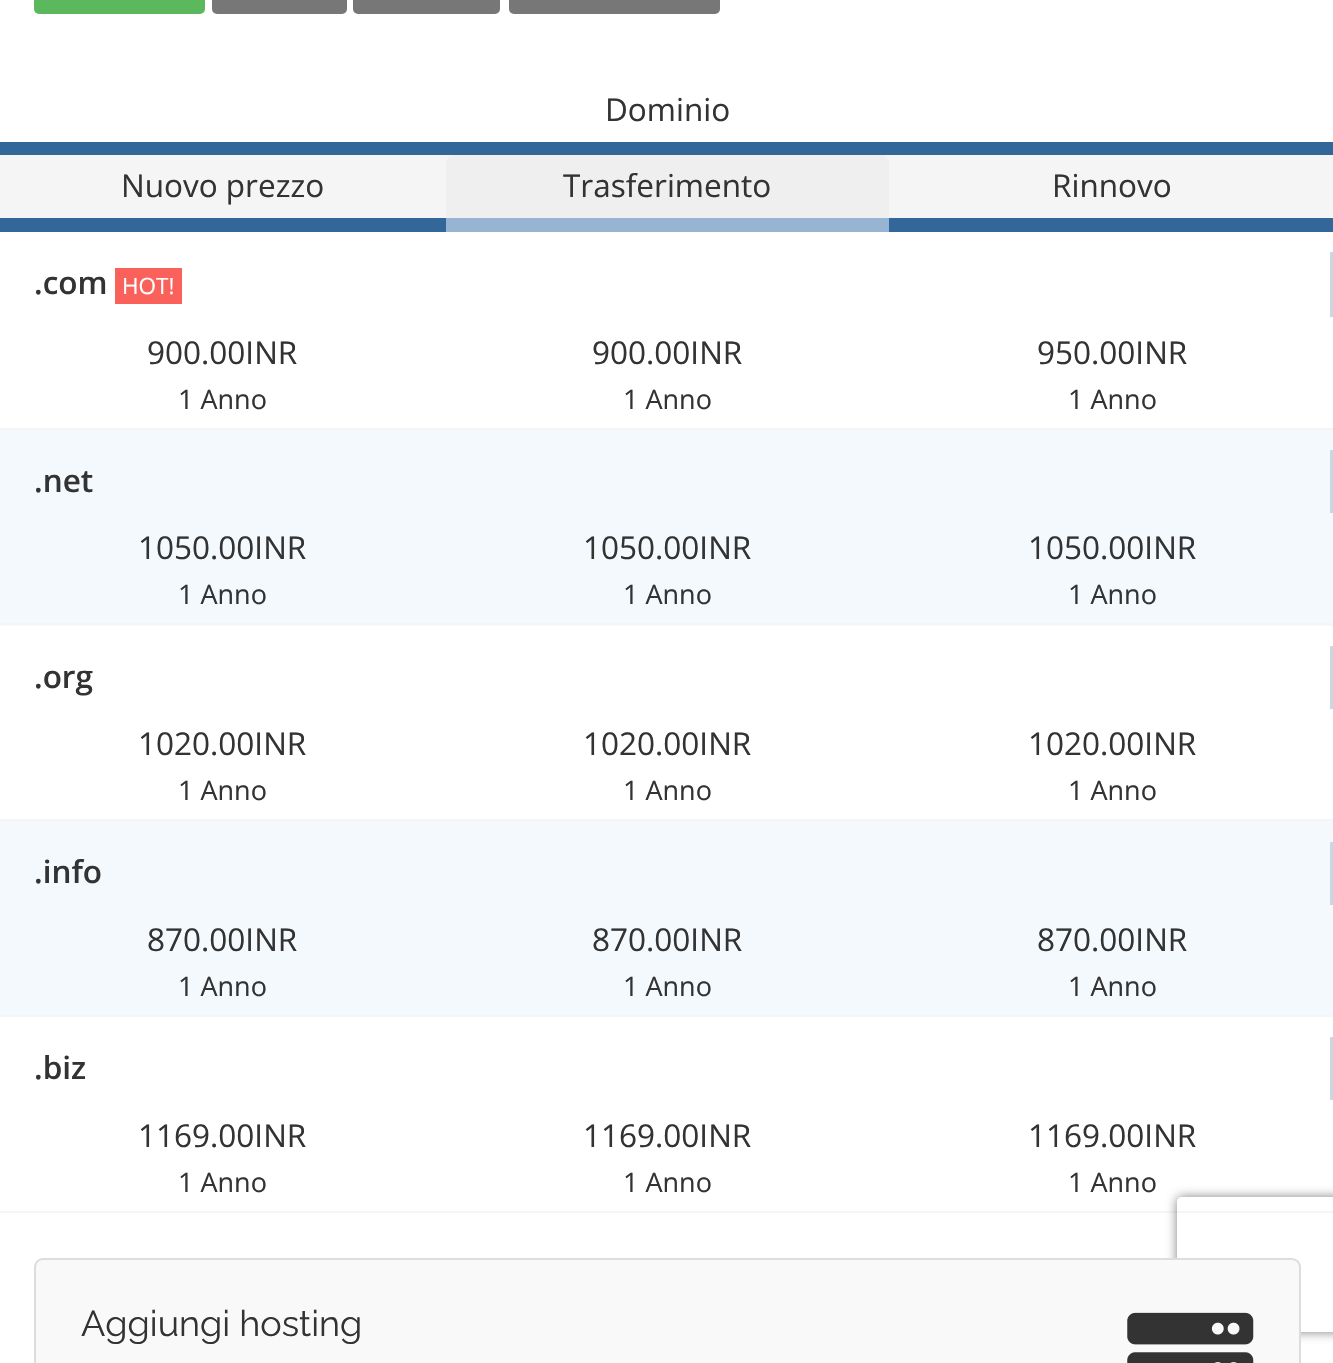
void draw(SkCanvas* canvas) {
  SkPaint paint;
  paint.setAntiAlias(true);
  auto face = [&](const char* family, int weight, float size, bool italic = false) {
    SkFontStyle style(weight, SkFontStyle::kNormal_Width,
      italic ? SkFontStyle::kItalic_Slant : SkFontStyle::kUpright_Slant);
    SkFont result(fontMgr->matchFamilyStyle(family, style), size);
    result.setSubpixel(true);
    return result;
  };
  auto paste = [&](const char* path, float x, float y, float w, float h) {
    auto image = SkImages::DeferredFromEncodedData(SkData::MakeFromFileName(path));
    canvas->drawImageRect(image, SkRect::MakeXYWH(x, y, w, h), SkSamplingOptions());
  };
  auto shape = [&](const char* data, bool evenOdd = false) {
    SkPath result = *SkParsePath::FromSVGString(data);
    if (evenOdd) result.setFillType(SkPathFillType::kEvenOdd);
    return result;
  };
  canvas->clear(0xffffffff);
  paint.setColor(0xff5cb85c);
  canvas->drawRoundRect(SkRect::MakeXYWH(34, -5, 171, 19), 5, 5, paint);
  paint.setColor(0xff777777);
  canvas->drawRoundRect(SkRect::MakeXYWH(212, -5, 135, 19), 5, 5, paint);
  canvas->drawRoundRect(SkRect::MakeXYWH(353, -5, 147, 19), 5, 5, paint);
  canvas->drawRoundRect(SkRect::MakeXYWH(509, -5, 211, 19), 5, 5, paint);
  {
    const struct { float x, y, w, h; SkColor color; } items[] = {
      {0, 142, 1333, 13, 0xff336699},
      {0, 155, 1333, 63, 0xfff5f5f5},
      {0, 218, 446, 14, 0xff336699},
    };
    for (auto [x, y, w, h, color] : items) {
      paint.setColor(color);
      canvas->drawRect(SkRect::MakeXYWH(x, y, w, h), paint);
    }
  }
  paint.setColor(0xffefefef);
  canvas->drawPath(shape("M455 155H880C885 155 889 159 889 164V232H446V164C446 159 450 155 455 155Z"), paint);
  {
    const struct { float x, y, w, h; SkColor color; } items[] = {
      {446, 218, 443, 14, 0xff97b5d2},
      {889, 218, 444, 14, 0xff336699},
      {0, 428, 1333, 2, 0xfff5f5f5},
      {1330, 252, 3, 65, 0xffc7d7e6},
      {115, 268, 67, 36, 0xfff9615a},
      {0, 430, 1333, 196, 0xfff3f9fd},
      {0, 623, 1333, 2, 0xfff5f5f5},
      {1330, 450, 3, 63, 0xffc7d7e6},
      {0, 819, 1333, 2, 0xfff5f5f5},
      {1330, 646, 3, 63, 0xffc7d7e6},
      {0, 821, 1333, 194, 0xfff3f9fd},
      {0, 1015, 1333, 2, 0xfff5f5f5},
      {1330, 842, 3, 63, 0xffc7d7e6},
      {0, 1211, 1333, 2, 0xfff5f5f5},
      {1330, 1037, 3, 63, 0xffc7d7e6},
    };
    for (auto [x, y, w, h, color] : items) {
      paint.setColor(color);
      canvas->drawRect(SkRect::MakeXYWH(x, y, w, h), paint);
    }
  }
  canvas->save();
  canvas->clipPath(shape("M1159 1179H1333V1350H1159ZM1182 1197H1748C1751 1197 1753 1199 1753 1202V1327C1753 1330 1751 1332 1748 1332H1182C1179 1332 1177 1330 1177 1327V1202C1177 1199 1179 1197 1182 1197Z", true), true);
  paint.setColor(0xff808080);
  paint.setMaskFilter(SkMaskFilter::MakeBlur(kNormal_SkBlurStyle, 5.5f));
  canvas->drawRoundRect(SkRect::MakeXYWH(1177, 1197, 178, 135), 5, 5, paint);
  paint.setMaskFilter(nullptr);
  canvas->restore();
  paint.setColor(0xfff9f9f9);
  canvas->drawRoundRect(SkRect::MakeXYWH(35, 1259, 1265, 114), 8, 8, paint);
  paint.setStroke(true);
  paint.setStrokeWidth(2);
  paint.setColor(0xffdddddd);
  canvas->drawRoundRect(SkRect::MakeXYWH(35, 1259, 1265, 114), 8, 8, paint);
  paste("img/1.png", 1127, 1312, 127, 51);
  auto f0 = face("Open Sans", 400, 31.5f);
  paint.setStroke(false);
  paint.setColor(0xff333333);
  {
    const struct { const char* s; float x, y; } items[] = {
      {"Dominio", 605, 121},
      {"Nuovo prezzo", 121, 197},
      {"Trasferimento", 563, 197},
      {"Rinnovo", 1052, 197},
    };
    for (auto [s, x, y] : items) {
      canvas->drawString(s, x, y, f0, paint);
    }
  }
  auto f1 = face("Open Sans", 600, 31.5f);
  canvas->drawString(".com", 34, 294, f1, paint);
  auto f2 = face("Open Sans", 400, 22.5f);
  paint.setColor(0xffffffff);
  canvas->drawString("HOT!", 122, 294, f2, paint);
  paint.setColor(0xff333333);
  canvas->drawString("900.00INR", 147, 364, f0, paint);
  auto f3 = face("Open Sans", 400, 27);
  canvas->drawString("1 Anno", 178, 409, f3, paint);
  canvas->drawString("900.00INR", 592, 364, f0, paint);
  canvas->drawString("1 Anno", 623, 409, f3, paint);
  canvas->drawString("950.00INR", 1037, 364, f0, paint);
  canvas->drawString("1 Anno", 1068, 409, f3, paint);
  canvas->drawString(".net", 34, 492, f1, paint);
  canvas->drawString("1050.00INR", 138, 559, f0, paint);
  canvas->drawString("1 Anno", 178, 604, f3, paint);
  canvas->drawString("1050.00INR", 583, 559, f0, paint);
  canvas->drawString("1 Anno", 623, 604, f3, paint);
  canvas->drawString("1050.00INR", 1028, 559, f0, paint);
  canvas->drawString("1 Anno", 1068, 604, f3, paint);
  canvas->drawString(".org", 34, 688, f1, paint);
  canvas->drawString("1020.00INR", 138, 755, f0, paint);
  canvas->drawString("1 Anno", 178, 800, f3, paint);
  canvas->drawString("1020.00INR", 583, 755, f0, paint);
  canvas->drawString("1 Anno", 623, 800, f3, paint);
  canvas->drawString("1020.00INR", 1028, 755, f0, paint);
  canvas->drawString("1 Anno", 1068, 800, f3, paint);
  canvas->drawString(".info", 34, 883, f1, paint);
  canvas->drawString("870.00INR", 147, 951, f0, paint);
  canvas->drawString("1 Anno", 178, 996, f3, paint);
  canvas->drawString("870.00INR", 592, 951, f0, paint);
  canvas->drawString("1 Anno", 623, 996, f3, paint);
  canvas->drawString("870.00INR", 1037, 951, f0, paint);
  canvas->drawString("1 Anno", 1068, 996, f3, paint);
  canvas->drawString(".biz", 34, 1079, f1, paint);
  canvas->drawString("1169.00INR", 138, 1147, f0, paint);
  canvas->drawString("1 Anno", 178, 1192, f3, paint);
  canvas->drawString("1169.00INR", 583, 1147, f0, paint);
  canvas->drawString("1 Anno", 623, 1192, f3, paint);
  canvas->drawString("1169.00INR", 1028, 1147, f0, paint);
  canvas->drawString("1 Anno", 1068, 1192, f3, paint);
  auto f4 = face("Raleway", 400, 36);
  canvas->drawString("Aggiungi hosting", 81, 1336, f4, paint);
}
